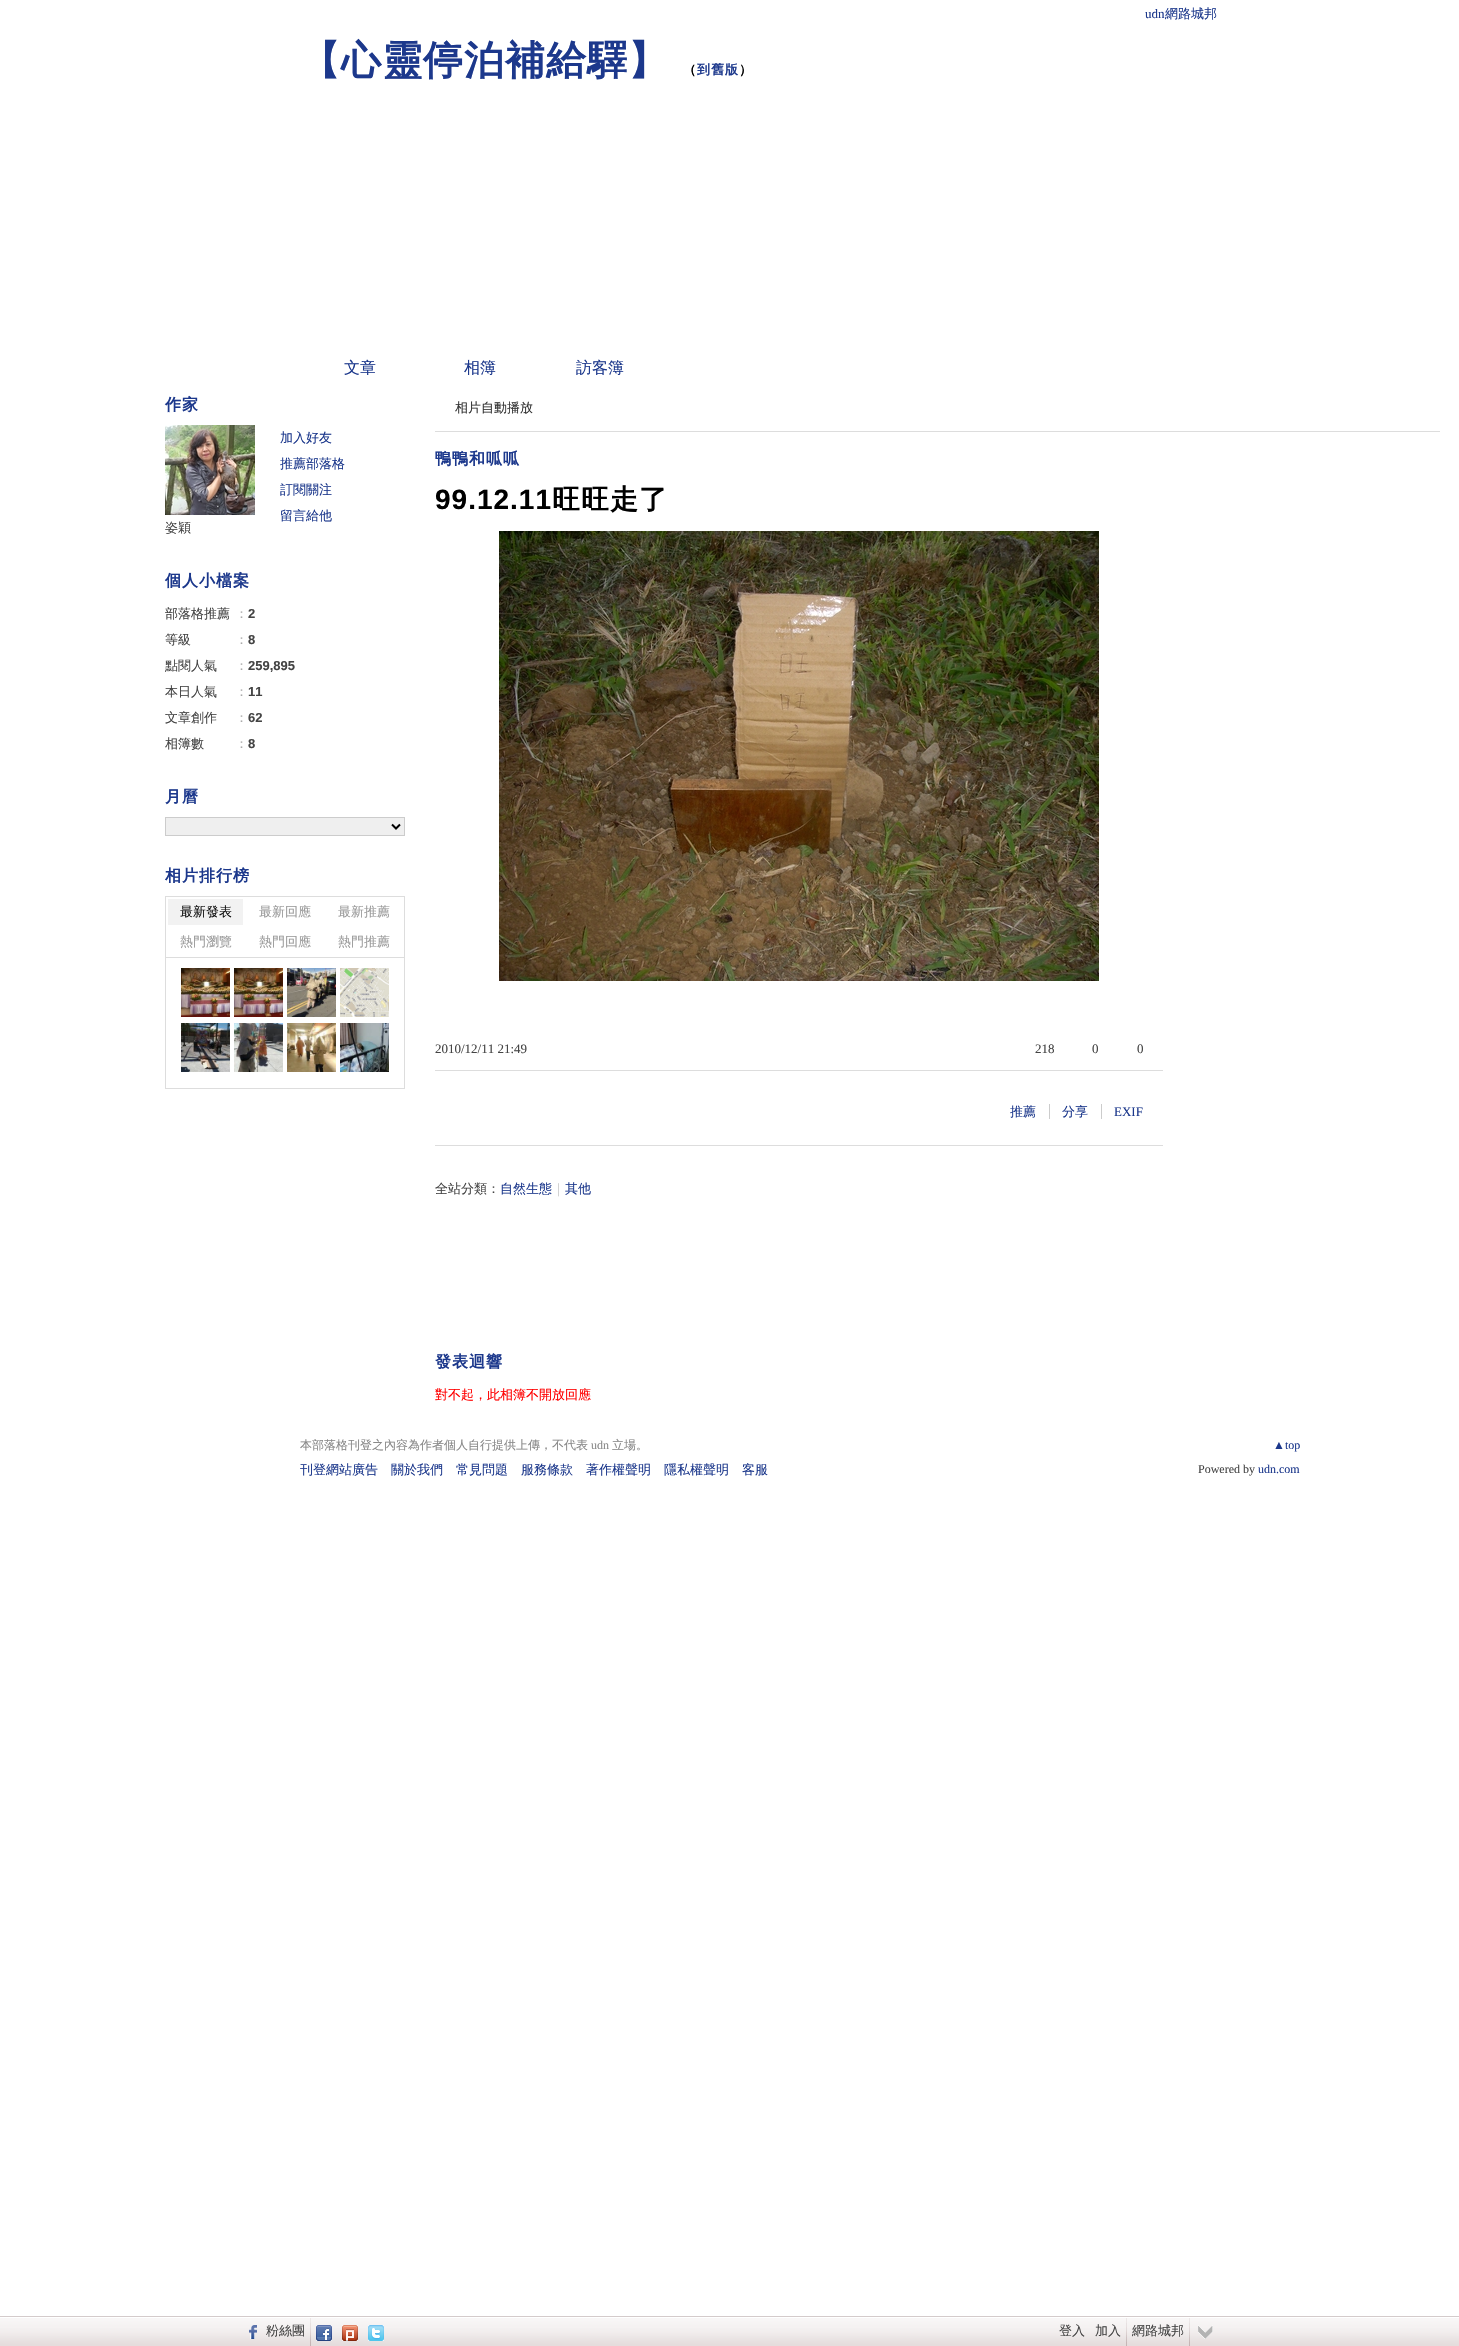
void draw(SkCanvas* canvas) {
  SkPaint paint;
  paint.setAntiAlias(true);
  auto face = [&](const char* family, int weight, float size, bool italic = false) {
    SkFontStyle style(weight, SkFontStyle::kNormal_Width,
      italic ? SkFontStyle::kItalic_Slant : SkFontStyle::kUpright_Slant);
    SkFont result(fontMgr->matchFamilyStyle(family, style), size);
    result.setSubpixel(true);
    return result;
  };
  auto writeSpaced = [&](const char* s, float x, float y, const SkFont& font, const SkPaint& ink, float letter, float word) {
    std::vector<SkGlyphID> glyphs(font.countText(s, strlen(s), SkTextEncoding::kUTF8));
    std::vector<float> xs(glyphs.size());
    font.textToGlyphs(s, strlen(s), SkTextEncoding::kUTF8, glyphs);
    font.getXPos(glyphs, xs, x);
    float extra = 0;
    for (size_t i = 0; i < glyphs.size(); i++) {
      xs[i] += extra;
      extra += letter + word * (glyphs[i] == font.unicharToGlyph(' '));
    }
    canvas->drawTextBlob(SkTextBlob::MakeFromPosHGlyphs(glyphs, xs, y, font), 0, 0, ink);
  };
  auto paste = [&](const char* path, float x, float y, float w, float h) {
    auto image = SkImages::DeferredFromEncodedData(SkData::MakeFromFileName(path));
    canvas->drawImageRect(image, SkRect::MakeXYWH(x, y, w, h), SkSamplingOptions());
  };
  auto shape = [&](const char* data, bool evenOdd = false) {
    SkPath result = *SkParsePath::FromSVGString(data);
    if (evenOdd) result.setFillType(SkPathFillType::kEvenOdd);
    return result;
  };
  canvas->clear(0xffffffff);
  paste("img/1.png", 165, 425, 90, 90);
  paint.setColor(0xffefefef);
  canvas->drawRect(SkRect::MakeXYWH(165.5f, 817.5f, 239, 18), paint);
  paint.setStroke(true);
  paint.setStrokeWidth(1);
  paint.setColor(0xffcccccc);
  canvas->drawRect(SkRect::MakeXYWH(165.5f, 817.5f, 239, 18), paint);
  paint.setStrokeWidth(2);
  paint.setColor(0xff000000);
  canvas->drawPath(shape("M392 824.5L396 828.5L400 824.5"), paint);
  paint.setStrokeWidth(1);
  paint.setColor(0xffdddddd);
  canvas->drawRect(SkRect::MakeXYWH(165.5f, 896.5f, 239, 61), paint);
  paint.setStroke(false);
  {
    const struct { float x, y, w, h; SkColor color; } items[] = {
      {168, 899, 75, 26, 0xfff2f2f2},
      {404, 958, 1, 131, 0xffdddddd},
      {165, 1088, 240, 1, 0xffdddddd},
      {165, 958, 1, 131, 0xffdddddd},
    };
    for (auto [x, y, w, h, color] : items) {
      paint.setColor(color);
      canvas->drawRect(SkRect::MakeXYWH(x, y, w, h), paint);
    }
  }
  paste("img/2.png", 181, 968, 49, 49);
  paste("img/3.png", 234, 968, 49, 49);
  paste("img/4.png", 287, 968, 49, 49);
  paste("img/5.png", 340, 968, 49, 49);
  paste("img/6.png", 181, 1023, 49, 49);
  paste("img/7.png", 234, 1023, 49, 49);
  paste("img/8.png", 287, 1023, 49, 49);
  paste("img/9.png", 340, 1023, 49, 49);
  canvas->drawRect(SkRect::MakeXYWH(435, 431, 1005, 1), paint);
  paste("img/10.png", 499, 531, 600, 450);
  {
    const struct { float x, y, w, h; SkColor color; } items[] = {
      {435, 1070, 728, 1, 0xffdddddd},
      {1049, 1104, 1, 15, 0xffcccccc},
      {1101, 1104, 1, 15, 0xffcccccc},
      {435, 1145, 728, 1, 0xffdddddd},
    };
    for (auto [x, y, w, h, color] : items) {
      paint.setColor(color);
      canvas->drawRect(SkRect::MakeXYWH(x, y, w, h), paint);
    }
  }
  paste("img/11.png", 0, 2316, 1459, 30);
  paste("img/12.png", 249, 2325, 8, 14);
  paste("img/13.png", 310, 2318, 1, 28);
  paste("img/14.png", 316, 2325, 16, 16);
  paste("img/15.png", 342, 2325, 16, 16);
  paste("img/16.png", 368, 2325, 16, 16);
  paste("img/13.png", 1126, 2318, 1, 28);
  paste("img/13.png", 1189, 2318, 1, 28);
  paste("img/17.png", 1198, 2325, 15, 14);
  auto f0 = face("Liberation Serif", 400, 13);
  paint.setColor(0xff1c388c);
  canvas->drawString("udn", 1145, 18, f0, paint);
  auto f1 = face("WenQuanYi Zen Hei", 500, 13);
  canvas->drawString("網路城邦", 1165, 18, f1, paint);
  auto f2 = face("WenQuanYi Zen Hei", 700, 40);
  writeSpaced("【心靈停泊補給驛】", 300, 74, f2, paint, 1, 0);
  auto f3 = face("WenQuanYi Zen Hei", 700, 13);
  paint.setColor(0xff000000);
  writeSpaced("（", 683, 74, f3, paint, 1, 0);
  paint.setColor(0xff1c388c);
  writeSpaced("到舊版", 697, 74, f3, paint, 1, 0);
  paint.setColor(0xff000000);
  writeSpaced("）", 739, 74, f3, paint, 1, 0);
  auto f4 = face("WenQuanYi Zen Hei", 500, 16);
  paint.setColor(0xff1c388c);
  {
    const struct { const char* s; float x, y; } items[] = {
      {"文章", 344, 373},
      {"相簿", 464, 373},
      {"訪客簿", 576, 373},
    };
    for (auto [s, x, y] : items) {
      canvas->drawString(s, x, y, f4, paint);
    }
  }
  auto f5 = face("WenQuanYi Zen Hei", 700, 16);
  writeSpaced("作家", 165, 410, f5, paint, 1, 0);
  {
    const struct { const char* s; float x, y; } items[] = {
      {"加入好友", 280, 442},
      {"推薦部落格", 280, 468},
      {"訂閱關注", 280, 494},
      {"留言給他", 280, 520},
    };
    for (auto [s, x, y] : items) {
      canvas->drawString(s, x, y, f1, paint);
    }
  }
  paint.setColor(0xff444444);
  canvas->drawString("姿穎", 165, 532, f1, paint);
  paint.setColor(0xff1c388c);
  writeSpaced("個人小檔案", 165, 586, f5, paint, 1, 0);
  paint.setColor(0xff444444);
  canvas->drawString("部落格推薦", 165, 618, f1, paint);
  paint.setColor(0xffaaaaaa);
  canvas->drawString("：", 235, 618, f1, paint);
  auto f6 = face("Liberation Sans", 700, 13);
  paint.setColor(0xff444444);
  canvas->drawString("2", 248, 618, f6, paint);
  canvas->drawString("等級", 165, 644, f1, paint);
  paint.setColor(0xffaaaaaa);
  canvas->drawString("：", 235, 644, f1, paint);
  paint.setColor(0xff444444);
  canvas->drawString("8", 248, 644, f6, paint);
  canvas->drawString("點閱人氣", 165, 670, f1, paint);
  paint.setColor(0xffaaaaaa);
  canvas->drawString("：", 235, 670, f1, paint);
  paint.setColor(0xff444444);
  canvas->drawString("259,895", 248, 670, f6, paint);
  canvas->drawString("本日人氣", 165, 696, f1, paint);
  paint.setColor(0xffaaaaaa);
  canvas->drawString("：", 235, 696, f1, paint);
  paint.setColor(0xff444444);
  canvas->drawString("11", 248, 696, f6, paint);
  canvas->drawString("文章創作", 165, 722, f1, paint);
  paint.setColor(0xffaaaaaa);
  canvas->drawString("：", 235, 722, f1, paint);
  paint.setColor(0xff444444);
  canvas->drawString("62", 248, 722, f6, paint);
  canvas->drawString("相簿數", 165, 748, f1, paint);
  paint.setColor(0xffaaaaaa);
  canvas->drawString("：", 235, 748, f1, paint);
  paint.setColor(0xff444444);
  canvas->drawString("8", 248, 748, f6, paint);
  paint.setColor(0xff1c388c);
  writeSpaced("月曆", 165, 802, f5, paint, 1, 0);
  writeSpaced("相片排行榜", 165, 881, f5, paint, 1, 0);
  paint.setColor(0xff111111);
  canvas->drawString("最新發表", 180, 916, f1, paint);
  paint.setColor(0xff999999);
  {
    const struct { const char* s; float x, y; } items[] = {
      {"最新回應", 259, 916},
      {"最新推薦", 338, 916},
      {"熱門瀏覽", 180, 946},
      {"熱門回應", 259, 946},
      {"熱門推薦", 338, 946},
    };
    for (auto [s, x, y] : items) {
      canvas->drawString(s, x, y, f1, paint);
    }
  }
  paint.setColor(0xff333333);
  canvas->drawString("相片自動播放", 455, 412, f1, paint);
  paint.setColor(0xff1c388c);
  writeSpaced("鴨鴨和呱呱", 435, 464, f5, paint, 1, 0);
  auto f7 = face("Liberation Sans", 700, 28);
  paint.setColor(0xff000000);
  writeSpaced("99.12.11", 435, 509, f7, paint, 1, 0);
  auto f8 = face("WenQuanYi Zen Hei", 700, 28);
  writeSpaced("旺旺走了", 552, 509, f8, paint, 1, 0);
  paint.setColor(0xff444444);
  {
    const struct { const char* s; float x, y; } items[] = {
      {"2010/12/11 21:49", 435, 1053},
      {"218", 1035, 1053},
      {"0", 1092, 1053},
      {"0", 1137, 1053},
    };
    for (auto [s, x, y] : items) {
      canvas->drawString(s, x, y, f0, paint);
    }
  }
  paint.setColor(0xff1c388c);
  canvas->drawString("推薦", 1010, 1116, f1, paint);
  canvas->drawString("分享", 1062, 1116, f1, paint);
  canvas->drawString("EXIF", 1114, 1116, f0, paint);
  paint.setColor(0xff444444);
  canvas->drawString("全站分類：", 435, 1193, f1, paint);
  paint.setColor(0xff1c388c);
  canvas->drawString("自然生態", 500, 1193, f1, paint);
  paint.setColor(0xffcccccc);
  canvas->drawString("｜", 552, 1193, f1, paint);
  paint.setColor(0xff1c388c);
  canvas->drawString("其他", 565, 1193, f1, paint);
  writeSpaced("發表迴響", 435, 1367, f5, paint, 1, 0);
  paint.setColor(0xffff0000);
  canvas->drawString("對不起，此相簿不開放回應", 435, 1399, f1, paint);
  auto f9 = face("WenQuanYi Zen Hei", 500, 12);
  paint.setColor(0xff888888);
  canvas->drawString("本部落格刊登之內容為作者個人自行提供上傳，不代表", 300, 1449, f9, paint);
  auto f10 = face("Liberation Serif", 400, 12);
  canvas->drawString("udn", 591, 1449, f10, paint);
  canvas->drawString("立場。", 612, 1449, f9, paint);
  paint.setColor(0xff1c388c);
  canvas->drawString("▲top", 1273, 1449, f10, paint);
  {
    const struct { const char* s; float x, y; } items[] = {
      {"刊登網站廣告", 300, 1474},
      {"關於我們", 391, 1474},
      {"常見問題", 456, 1474},
      {"服務條款", 521, 1474},
      {"著作權聲明", 586, 1474},
      {"隱私權聲明", 664, 1474},
      {"客服", 742, 1474},
    };
    for (auto [s, x, y] : items) {
      canvas->drawString(s, x, y, f1, paint);
    }
  }
  paint.setColor(0xff444444);
  canvas->drawString("Powered by", 1198, 1473, f10, paint);
  paint.setColor(0xff1c388c);
  canvas->drawString("udn.com", 1258, 1473, f10, paint);
  paint.setColor(0xff444444);
  {
    const struct { const char* s; float x, y; } items[] = {
      {"粉絲團", 266, 2335},
      {"登入", 1059, 2335},
      {"加入", 1095, 2335},
      {"網路城邦", 1132, 2335},
    };
    for (auto [s, x, y] : items) {
      canvas->drawString(s, x, y, f1, paint);
    }
  }
}
